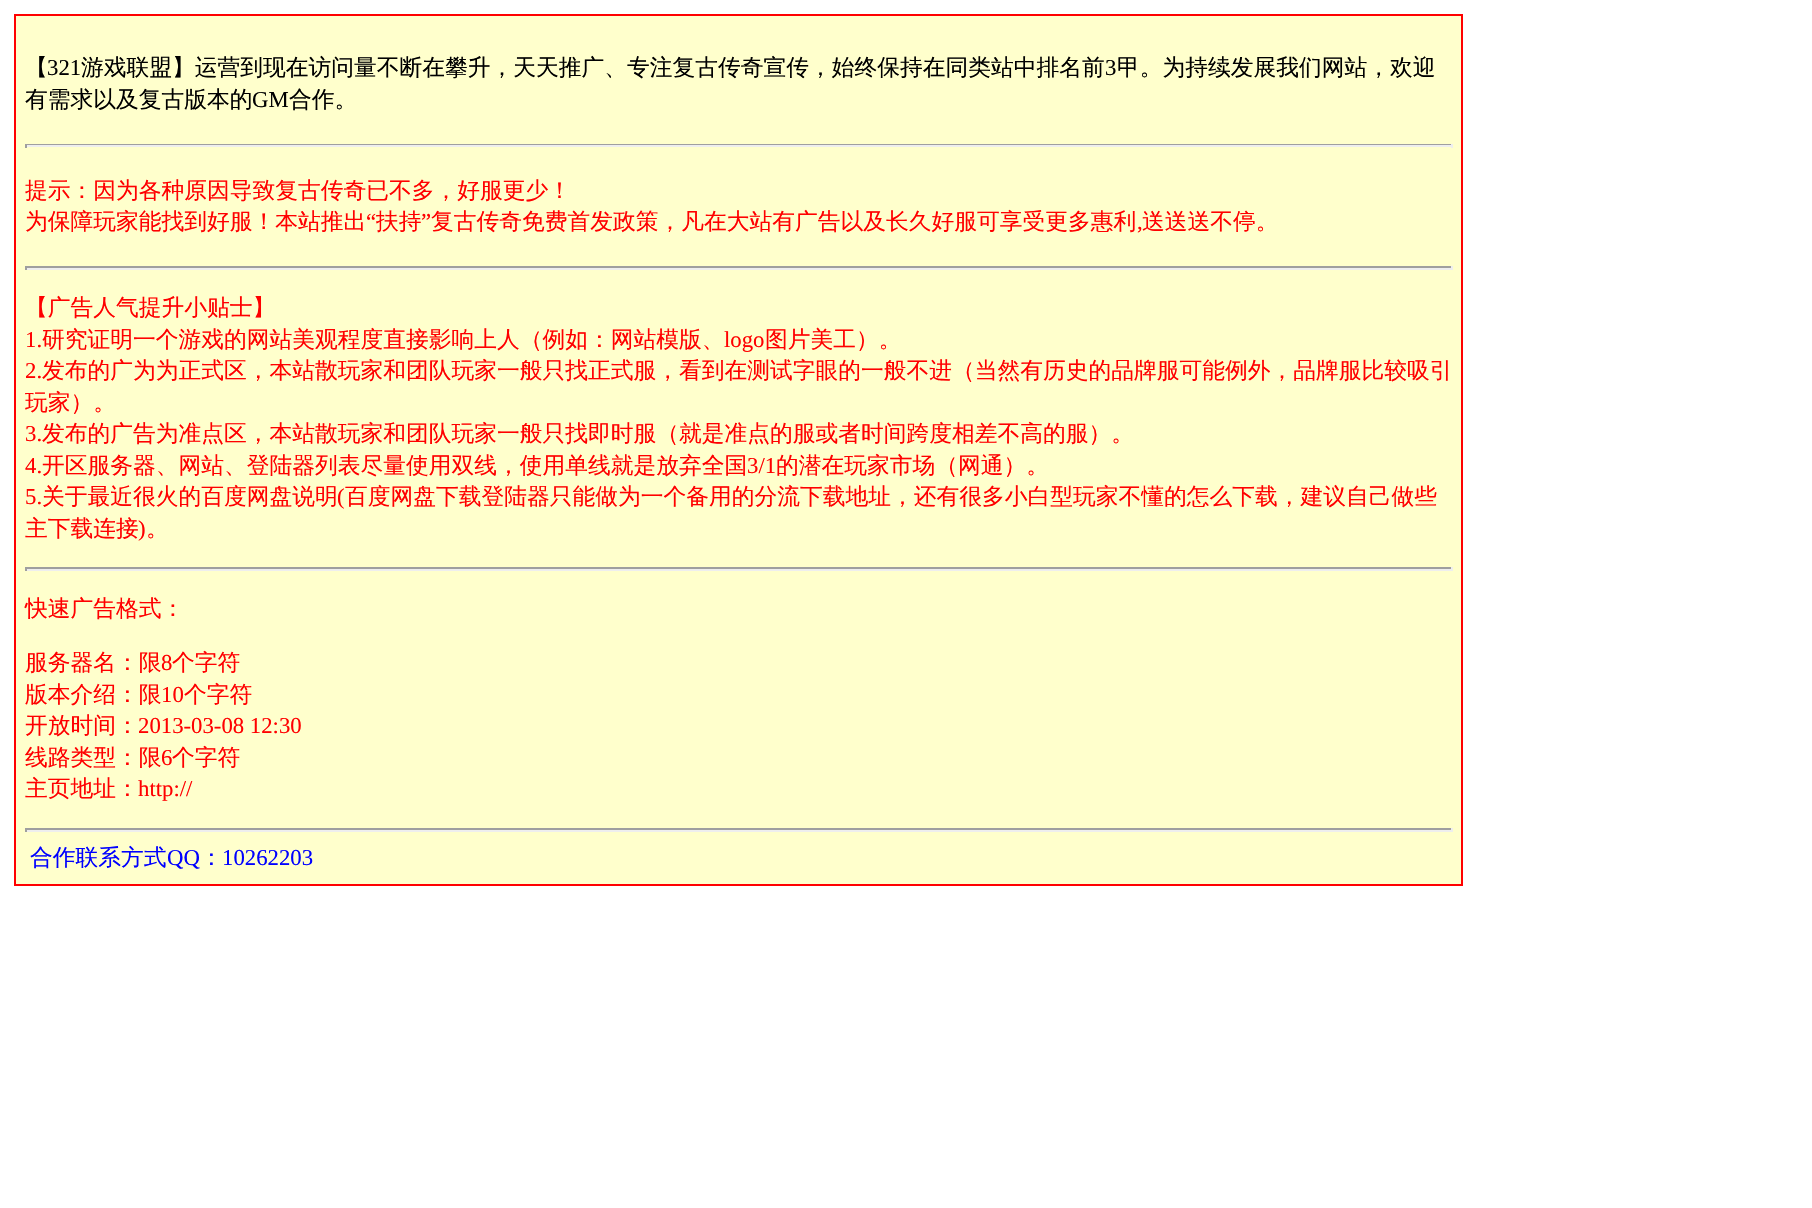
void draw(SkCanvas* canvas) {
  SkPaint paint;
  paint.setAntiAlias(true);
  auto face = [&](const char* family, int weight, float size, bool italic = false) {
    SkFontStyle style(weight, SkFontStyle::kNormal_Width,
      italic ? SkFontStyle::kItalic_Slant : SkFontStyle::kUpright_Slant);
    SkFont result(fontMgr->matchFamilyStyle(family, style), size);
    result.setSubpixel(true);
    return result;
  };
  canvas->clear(0xffffffff);
  paint.setColor(0xffffffcc);
  canvas->drawRect(SkRect::MakeXYWH(15, 15, 1447, 870), paint);
  paint.setStroke(true);
  paint.setStrokeWidth(2);
  paint.setColor(0xffff0000);
  canvas->drawRect(SkRect::MakeXYWH(15, 15, 1447, 870), paint);
  paint.setStroke(false);
  {
    const struct { float x, y, w, h; SkColor color; } items[] = {
      {25, 144, 1428, 1, 0xff9f9f9f},
      {1451, 144, 2, 4, 0xffeeeeee},
      {25, 145, 1428, 2, 0xffeeeeee},
      {25, 144, 2, 4, 0xff9f9f9f},
      {25, 266, 1428, 2, 0xff9f9f9f},
      {1451, 266, 2, 4, 0xffeeeeee},
      {25, 268, 1428, 2, 0xffeeeeee},
      {25, 266, 2, 4, 0xff9f9f9f},
      {25, 567, 1428, 2, 0xff9f9f9f},
      {1451, 567, 2, 4, 0xffeeeeee},
      {25, 569, 1428, 2, 0xffeeeeee},
      {25, 567, 2, 4, 0xff9f9f9f},
      {25, 828, 1428, 2, 0xff9f9f9f},
      {1451, 828, 2, 4, 0xffeeeeee},
      {25, 830, 1428, 2, 0xffeeeeee},
      {25, 828, 2, 4, 0xff9f9f9f},
    };
    for (auto [x, y, w, h, color] : items) {
      paint.setColor(color);
      canvas->drawRect(SkRect::MakeXYWH(x, y, w, h), paint);
    }
  }
  auto f0 = face("WenQuanYi Zen Hei", 500, 22.75f);
  paint.setColor(0xff000000);
  canvas->drawString("【", 25, 75, f0, paint);
  auto f1 = face("Liberation Serif", 400, 22.75f);
  canvas->drawString("321", 47, 75, f1, paint);
  canvas->drawString("游戏联盟】运营到现在访问量不断在攀升，天天推广、专注复古传奇宣传，始终保持在同类站中排名前", 81, 75, f0, paint);
  canvas->drawString("3", 1105, 75, f1, paint);
  canvas->drawString("甲。为持续发展我们网站，欢迎", 1117, 75, f0, paint);
  canvas->drawString("有需求以及复古版本的", 25, 107, f0, paint);
  canvas->drawString("GM", 252, 107, f1, paint);
  canvas->drawString("合作。", 289, 107, f0, paint);
  paint.setColor(0xffff0000);
  canvas->drawString("提示：因为各种原因导致复古传奇已不多，好服更少！", 25, 198, f0, paint);
  canvas->drawString("为保障玩家能找到好服！本站推出", 25, 229, f0, paint);
  canvas->drawString("“", 366, 229, f1, paint);
  canvas->drawString("扶持", 376, 229, f0, paint);
  canvas->drawString("”", 421, 229, f1, paint);
  canvas->drawString("复古传奇免费首发政策，凡在大站有广告以及长久好服可享受更多惠利", 431, 229, f0, paint);
  canvas->drawString("送送送不停。", 1142, 229, f0, paint);
  canvas->drawString(",", 1137, 229, f1, paint);
  canvas->drawString("【广告人气提升小贴士】", 25, 315, f0, paint);
  canvas->drawString("1.", 25, 347, f1, paint);
  canvas->drawString("研究证明一个游戏的网站美观程度直接影响上人（例如：网站模版、", 42, 347, f0, paint);
  canvas->drawString("logo", 724, 347, f1, paint);
  canvas->drawString("图片美工）。", 765, 347, f0, paint);
  canvas->drawString("2.", 25, 378, f1, paint);
  canvas->drawString("发布的广为为正式区，本站散玩家和团队玩家一般只找正式服，看到在测试字眼的一般不进（当然有历史的品牌服可能例外，品牌服比较吸引", 42, 378, f0, paint);
  canvas->drawString("玩家）。", 25, 410, f0, paint);
  canvas->drawString("3.", 25, 441, f1, paint);
  canvas->drawString("发布的广告为准点区，本站散玩家和团队玩家一般只找即时服（就是准点的服或者时间跨度相差不高的服）。", 42, 441, f0, paint);
  canvas->drawString("4.", 25, 473, f1, paint);
  canvas->drawString("开区服务器、网站、登陆器列表尽量使用双线，使用单线就是放弃全国", 42, 473, f0, paint);
  canvas->drawString("3/1", 747, 473, f1, paint);
  canvas->drawString("的潜在玩家市场（网通）。", 776, 473, f0, paint);
  canvas->drawString("5.", 25, 504, f1, paint);
  canvas->drawString("关于最近很火的百度网盘说明", 42, 504, f0, paint);
  canvas->drawString("(", 337, 504, f1, paint);
  canvas->drawString("百度网盘下载登陆器只能做为一个备用的分流下载地址，还有很多小白型玩家不懂的怎么下载，建议自己做些", 345, 504, f0, paint);
  canvas->drawString("主下载连接", 25, 536, f0, paint);
  canvas->drawString(")", 138, 536, f1, paint);
  {
    const struct { const char* s; float x, y; } items[] = {
      {"。", 146, 536},
      {"快速广告格式：", 25, 616},
      {"服务器名：限", 25, 670},
    };
    for (auto [s, x, y] : items) {
      canvas->drawString(s, x, y, f0, paint);
    }
  }
  canvas->drawString("8", 161, 670, f1, paint);
  canvas->drawString("个字符", 172, 670, f0, paint);
  canvas->drawString("版本介绍：限", 25, 702, f0, paint);
  canvas->drawString("10", 161, 702, f1, paint);
  canvas->drawString("个字符", 184, 702, f0, paint);
  canvas->drawString("开放时间：", 25, 733, f0, paint);
  canvas->drawString("2013-03-08 12:30", 138, 733, f1, paint);
  canvas->drawString("线路类型：限", 25, 765, f0, paint);
  canvas->drawString("6", 161, 765, f1, paint);
  canvas->drawString("个字符", 172, 765, f0, paint);
  canvas->drawString("主页地址：", 25, 796, f0, paint);
  canvas->drawString("http://", 138, 796, f1, paint);
  paint.setColor(0xff0000ff);
  canvas->drawString("合作联系方式", 30, 865, f0, paint);
  canvas->drawString("QQ", 167, 865, f1, paint);
  canvas->drawString("：", 200, 865, f0, paint);
  canvas->drawString("10262203", 222, 865, f1, paint);
}
